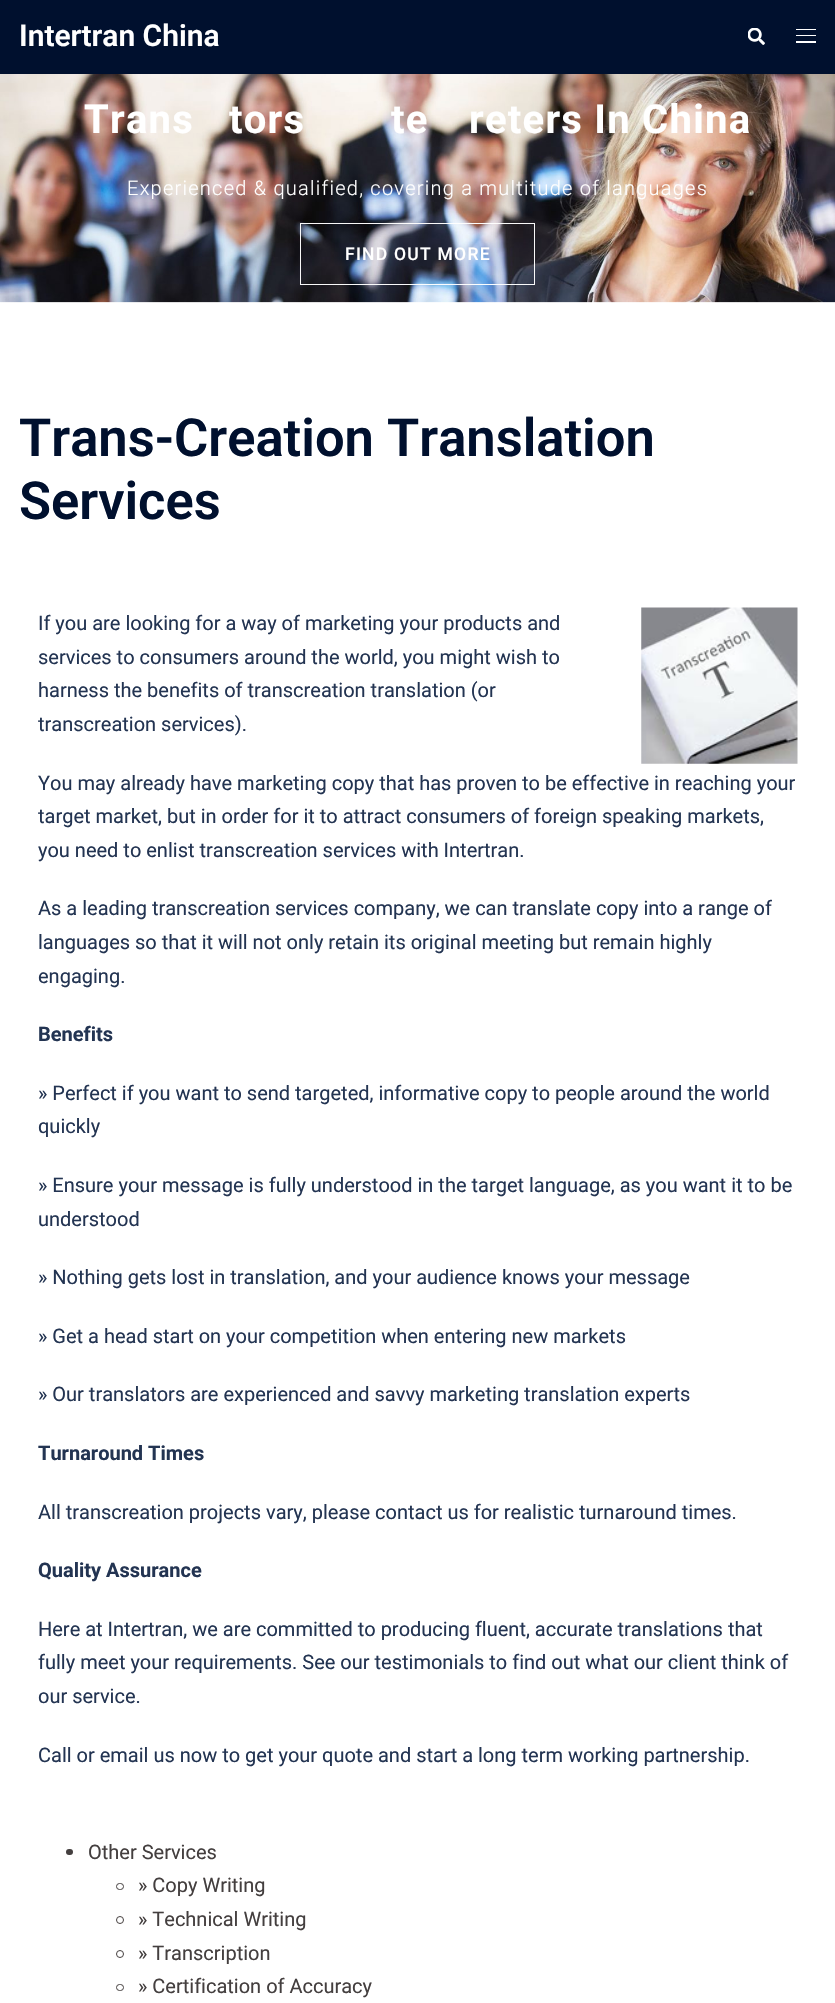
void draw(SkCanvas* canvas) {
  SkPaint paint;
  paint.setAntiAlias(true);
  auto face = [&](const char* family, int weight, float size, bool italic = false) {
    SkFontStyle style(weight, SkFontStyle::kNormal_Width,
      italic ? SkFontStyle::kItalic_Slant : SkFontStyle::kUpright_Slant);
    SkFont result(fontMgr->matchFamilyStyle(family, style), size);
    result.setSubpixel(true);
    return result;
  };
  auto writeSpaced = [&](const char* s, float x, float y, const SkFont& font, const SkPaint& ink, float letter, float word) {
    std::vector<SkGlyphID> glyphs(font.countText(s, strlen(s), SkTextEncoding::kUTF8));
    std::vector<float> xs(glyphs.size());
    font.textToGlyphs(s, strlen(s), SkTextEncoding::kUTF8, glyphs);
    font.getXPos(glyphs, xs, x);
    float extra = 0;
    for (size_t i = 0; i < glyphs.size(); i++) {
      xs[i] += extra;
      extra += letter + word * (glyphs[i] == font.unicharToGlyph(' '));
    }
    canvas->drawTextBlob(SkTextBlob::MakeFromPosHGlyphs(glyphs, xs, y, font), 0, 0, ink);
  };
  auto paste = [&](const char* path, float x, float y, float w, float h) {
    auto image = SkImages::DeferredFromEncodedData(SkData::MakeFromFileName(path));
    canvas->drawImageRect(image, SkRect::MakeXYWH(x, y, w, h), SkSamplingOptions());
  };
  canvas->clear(0xffffffff);
  paint.setColor(0xff00102e);
  canvas->drawRect(SkRect::MakeXYWH(0, 0, 835, 74), paint);
  paste("img/1.png", 748, 28, 17, 17);
  {
    const struct { float x, y, w, h; SkColor color; } items[] = {
      {796, 29, 20, 1, 0xffffffff},
      {796, 35, 20, 1, 0xffffffff},
      {796, 41, 20, 2, 0xffffffff},
    };
    for (auto [x, y, w, h, color] : items) {
      paint.setColor(color);
      canvas->drawRect(SkRect::MakeXYWH(x, y, w, h), paint);
    }
  }
  paste("img/2.png", 0, 74, 835, 229);
  paint.setStroke(true);
  paint.setStrokeWidth(1);
  paint.setColor(0xf7ffffff);
  canvas->drawRect(SkRect::MakeXYWH(300.5f, 223.5f, 234, 61), paint);
  paste("img/3.png", 641, 607, 157, 157);
  paint.setStroke(false);
  paint.setColor(0xff443f3f);
  canvas->drawRoundRect(SkRect::MakeXYWH(66, 1849, 7, 6), 3, 3, paint);
  paint.setStroke(true);
  canvas->drawRoundRect(SkRect::MakeXYWH(116.5f, 1883.5f, 7, 6), 3, 3, paint);
  canvas->drawCircle(120, 1920, 3.5f, paint);
  canvas->drawCircle(120, 1954, 3.5f, paint);
  canvas->drawRoundRect(SkRect::MakeXYWH(116.5f, 1984.5f, 7, 6), 3, 3, paint);
  auto f0 = face("Roboto", 600, 30);
  paint.setStroke(false);
  paint.setColor(0xffffffff);
  canvas->drawString("Intertran China", 19, 46, f0, paint);
  auto f1 = face("Roboto", 700, 40);
  {
    const struct { const char* s; float x, y; } items[] = {
      {"Trans", 84, 133},
      {"tors", 229, 133},
      {"te", 391, 133},
      {"reters In China", 469, 133},
    };
    for (auto [s, x, y] : items) {
      writeSpaced(s, x, y, f1, paint, 1.25f, 0);
    }
  }
  auto f2 = face("Roboto", 300, 20);
  writeSpaced("Experienced & qualified, covering a multitude of languages", 127, 195, f2, paint, 1.25f, 0);
  auto f3 = face("Roboto", 500, 17.5f);
  writeSpaced("FIND OUT MORE", 345, 260, f3, paint, 1.25f, 0);
  auto f4 = face("Roboto", 600, 52.5f);
  paint.setColor(0xff00102e);
  canvas->drawString("Trans-Creation Translation", 19, 456, f4, paint);
  canvas->drawString("Services", 19, 519, f4, paint);
  auto f5 = face("Roboto", 400, 20);
  paint.setColor(0xff233452);
  {
    const struct { const char* s; float x, y; } items[] = {
      {"If you are looking for a way of marketing your products and", 38, 630},
      {"services to consumers around the world, you might wish to", 38, 664},
      {"harness the benefits of transcreation translation (or", 38, 697},
      {"transcreation services).", 38, 731},
      {"You may already have marketing copy that has proven to be effective in reaching your", 38, 790},
      {"target market, but in order for it to attract consumers of foreign speaking markets,", 38, 823},
      {"you need to enlist transcreation services with Intertran.", 38, 857},
      {"As a leading transcreation services company, we can translate copy into a range of", 38, 915},
      {"languages so that it will not only retain its original meeting but remain highly", 38, 949},
      {"engaging.", 38, 983},
    };
    for (auto [s, x, y] : items) {
      canvas->drawString(s, x, y, f5, paint);
    }
  }
  auto f6 = face("Roboto", 700, 20);
  canvas->drawString("Benefits", 38, 1041, f6, paint);
  {
    const struct { const char* s; float x, y; } items[] = {
      {"» Perfect if you want to send targeted, informative copy to people around the world", 38, 1100},
      {"quickly", 38, 1133},
      {"» Ensure your message is fully understood in the target language, as you want it to be", 38, 1192},
      {"understood", 38, 1226},
      {"» Nothing gets lost in translation, and your audience knows your message", 38, 1284},
      {"» Get a head start on your competition when entering new markets", 38, 1343},
      {"» Our translators are experienced and savvy marketing translation experts", 38, 1401},
    };
    for (auto [s, x, y] : items) {
      canvas->drawString(s, x, y, f5, paint);
    }
  }
  canvas->drawString("Turnaround Times", 38, 1460, f6, paint);
  canvas->drawString("All transcreation projects vary, please contact us for realistic turnaround times.", 38, 1519, f5, paint);
  canvas->drawString("Quality Assurance", 38, 1577, f6, paint);
  {
    const struct { const char* s; float x, y; } items[] = {
      {"Here at Intertran, we are committed to producing fluent, accurate translations that", 38, 1636},
      {"fully meet your requirements. See our testimonials to find out what our client think of", 38, 1669},
      {"our service.", 38, 1703},
      {"Call or email us now to get your quote and start a long term working partnership.", 38, 1762},
    };
    for (auto [s, x, y] : items) {
      canvas->drawString(s, x, y, f5, paint);
    }
  }
  paint.setColor(0xff443f3f);
  {
    const struct { const char* s; float x, y; } items[] = {
      {"Other Services", 88, 1859},
      {"» Copy Writing", 138, 1892},
      {"» Technical Writing", 138, 1926},
      {"» Transcription", 138, 1960},
      {"» Certification of Accuracy", 138, 1993},
    };
    for (auto [s, x, y] : items) {
      canvas->drawString(s, x, y, f5, paint);
    }
  }
}
